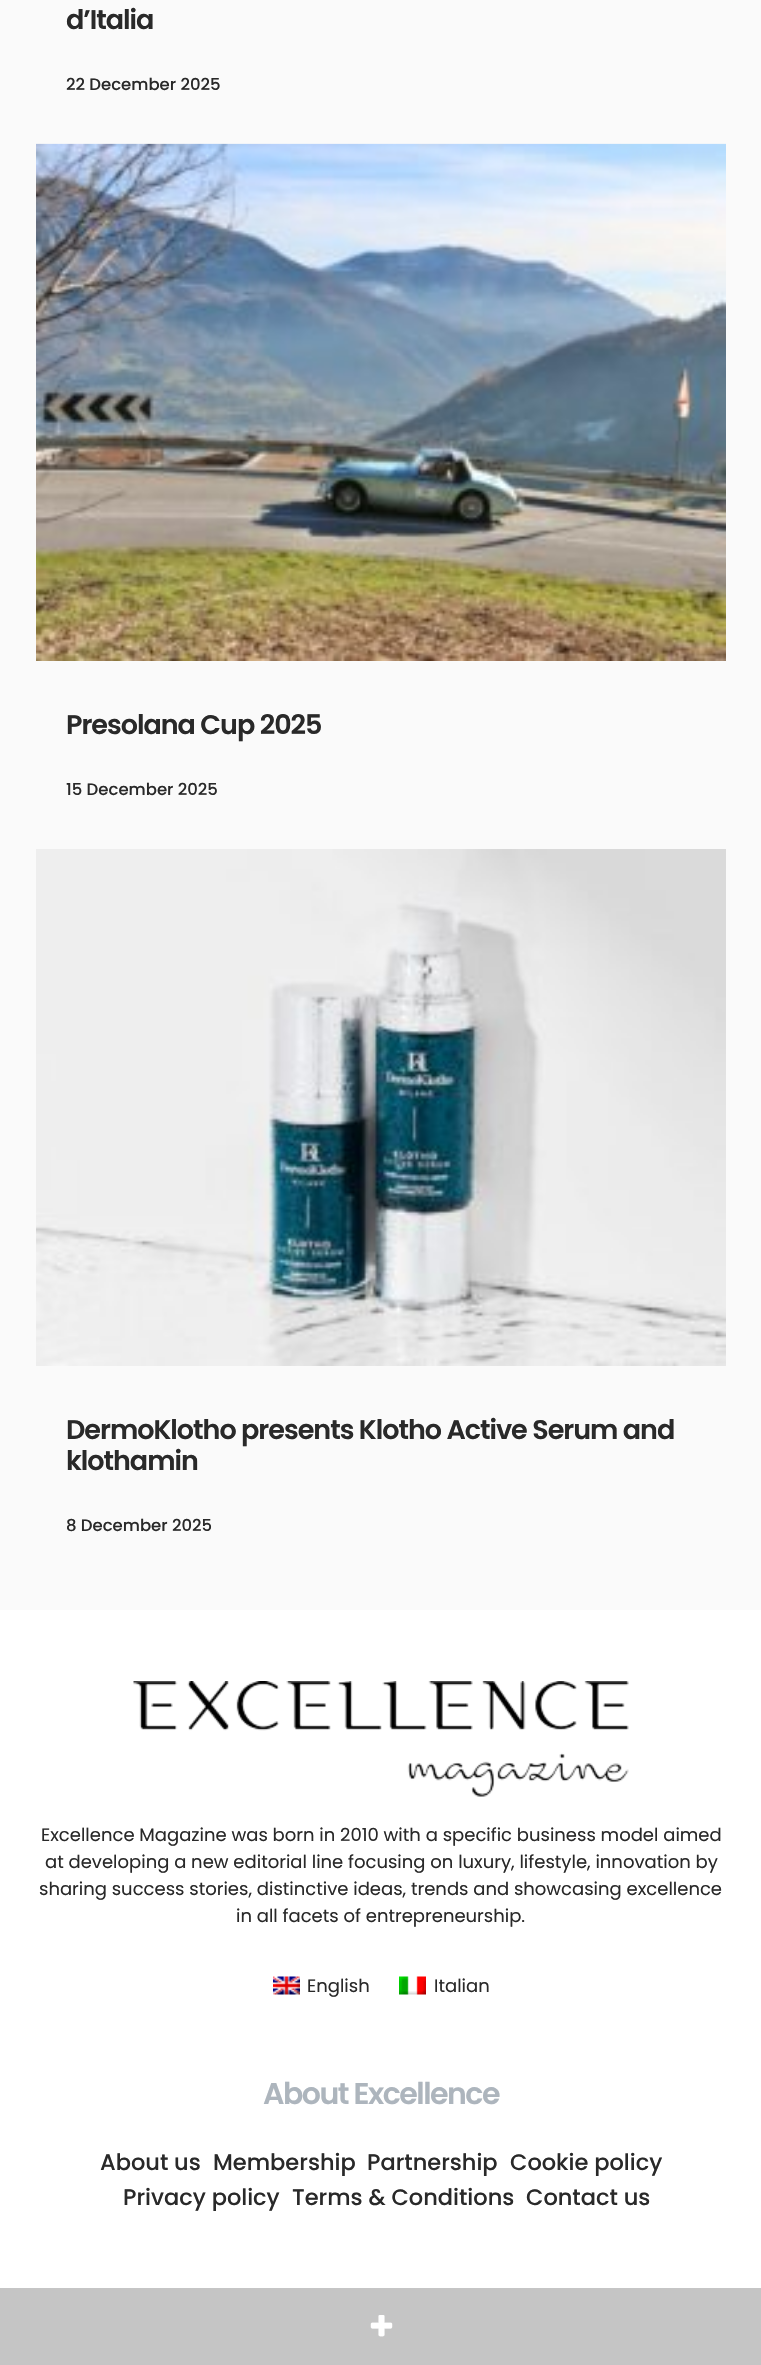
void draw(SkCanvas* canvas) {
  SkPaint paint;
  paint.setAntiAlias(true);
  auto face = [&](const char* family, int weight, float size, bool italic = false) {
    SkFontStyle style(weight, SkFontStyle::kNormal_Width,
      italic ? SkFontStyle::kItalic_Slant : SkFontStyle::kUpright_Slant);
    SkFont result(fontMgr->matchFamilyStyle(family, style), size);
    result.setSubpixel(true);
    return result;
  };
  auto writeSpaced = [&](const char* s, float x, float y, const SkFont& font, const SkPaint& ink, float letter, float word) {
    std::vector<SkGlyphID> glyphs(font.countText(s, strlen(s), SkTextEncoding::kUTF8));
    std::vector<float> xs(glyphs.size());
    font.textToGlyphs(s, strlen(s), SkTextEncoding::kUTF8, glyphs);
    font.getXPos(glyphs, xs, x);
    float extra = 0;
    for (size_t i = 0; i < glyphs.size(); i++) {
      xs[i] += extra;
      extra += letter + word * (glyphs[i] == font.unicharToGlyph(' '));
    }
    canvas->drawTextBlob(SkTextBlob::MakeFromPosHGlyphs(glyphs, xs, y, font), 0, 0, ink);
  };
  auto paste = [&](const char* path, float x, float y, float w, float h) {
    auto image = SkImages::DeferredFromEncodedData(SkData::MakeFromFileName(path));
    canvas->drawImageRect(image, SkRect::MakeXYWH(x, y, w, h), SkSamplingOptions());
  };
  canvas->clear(0xfffafafa);
  paste("img/1.png", 36, 143, 690, 518);
  paste("img/2.png", 36, 849, 690, 517);
  paint.setColor(0xffffffff);
  canvas->drawRect(SkRect::MakeXYWH(0, 1610, 761, 678), paint);
  paste("img/3.png", 133, 1681, 496, 116);
  paste("img/4.png", 273, 1976, 27, 19);
  paste("img/5.png", 399, 1976, 27, 19);
  paint.setColor(0xffc5c5c5);
  canvas->drawRect(SkRect::MakeXYWH(0, 2288, 761, 77), paint);
  auto f0 = face("Poppins", 600, 27);
  paint.setColor(0xff292929);
  writeSpaced("d’Italia", 66, 29, f0, paint, -1, 0);
  auto f1 = face("Poppins", 500, 16.5f);
  canvas->drawString("22 December 2025", 66, 90, f1, paint);
  writeSpaced("Presolana Cup 2025", 66, 734, f0, paint, -1, 0);
  canvas->drawString("15 December 2025", 66, 795, f1, paint);
  writeSpaced("DermoKlotho presents Klotho Active Serum and", 66, 1439, f0, paint, -1, 0);
  writeSpaced("klothamin", 66, 1470, f0, paint, -1, 0);
  canvas->drawString("8 December 2025", 66, 1531, f1, paint);
  auto f2 = face("Poppins", 400, 18);
  {
    const struct { const char* s; float x, y; } items[] = {
      {"Excellence Magazine was born in 2010 with a specific business model aimed", 41, 1841},
      {"at developing a new editorial line focusing on luxury, lifestyle, innovation by", 45, 1868},
      {"sharing success stories, distinctive ideas, trends and showcasing excellence", 39, 1895},
      {"in all facets of entrepreneurship.", 236, 1922},
      {"English", 307, 1992},
      {"Italian", 434, 1992},
    };
    for (auto [s, x, y] : items) {
      canvas->drawString(s, x, y, f2, paint);
    }
  }
  auto f3 = face("Poppins", 600, 30);
  paint.setColor(0xffadb5bd);
  writeSpaced("About Excellence", 263, 2104, f3, paint, -1.5f, 0);
  auto f4 = face("Poppins", 500, 22.5f);
  paint.setColor(0xff292929);
  {
    const struct { const char* s; float x, y; } items[] = {
      {"About us", 100, 2170},
      {"Membership", 213, 2170},
      {"Partnership", 367, 2170},
      {"Cookie policy", 510, 2170},
      {"Privacy policy", 123, 2205},
      {"Terms & Conditions", 292, 2205},
      {"Contact us", 526, 2205},
    };
    for (auto [s, x, y] : items) {
      canvas->drawString(s, x, y, f4, paint);
    }
  }
  auto f5 = face("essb", 400, 27);
  paint.setColor(0xffffffff);
  canvas->drawString("1", 368, 2340, f5, paint);
}
